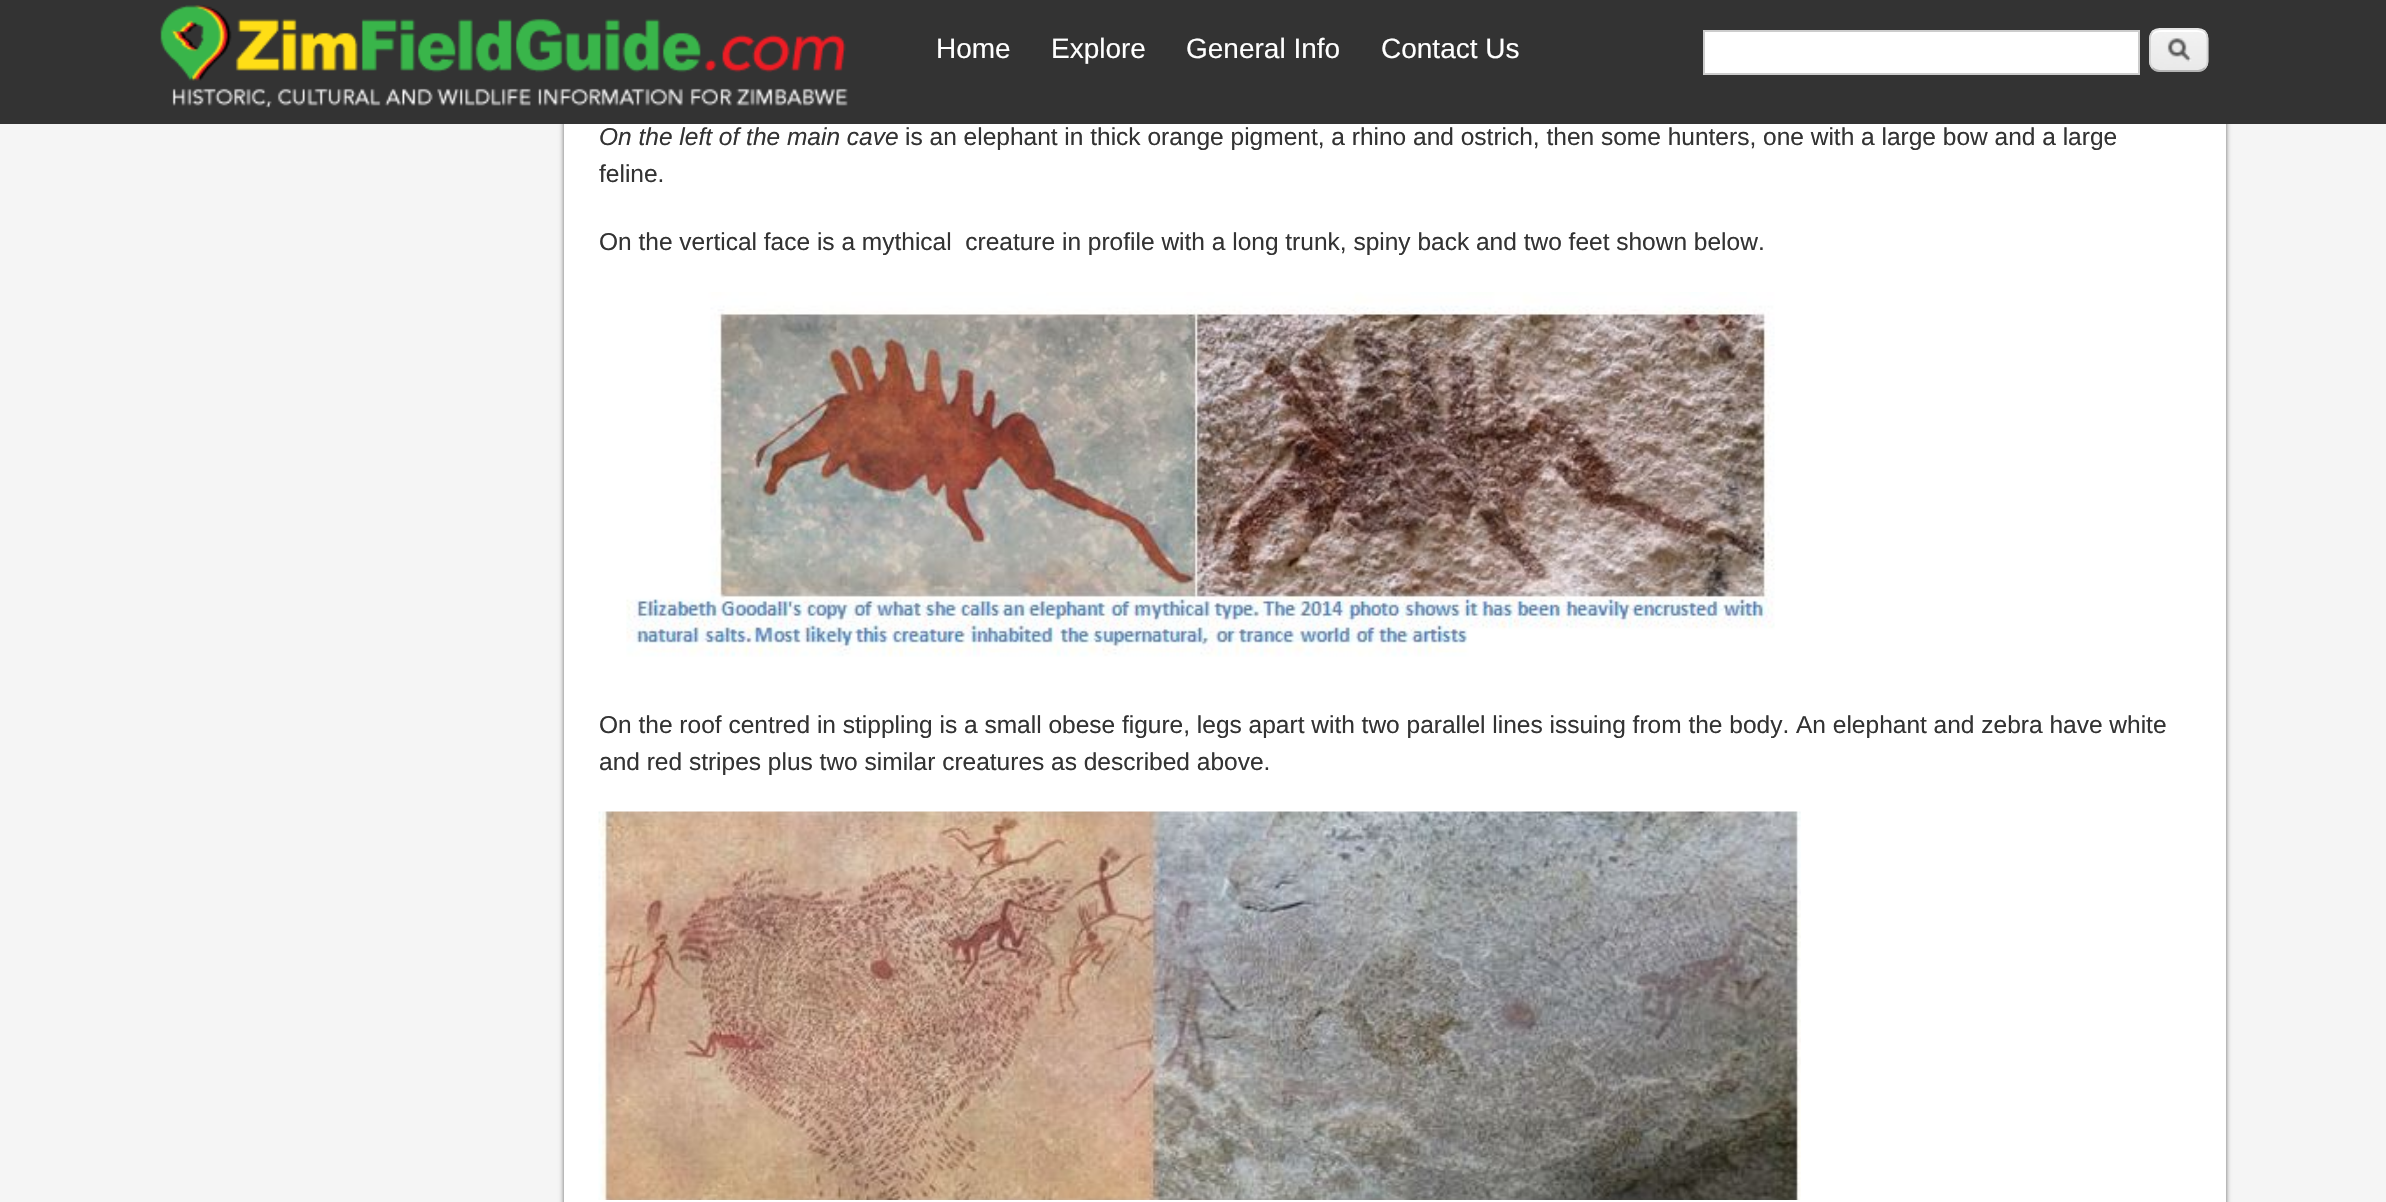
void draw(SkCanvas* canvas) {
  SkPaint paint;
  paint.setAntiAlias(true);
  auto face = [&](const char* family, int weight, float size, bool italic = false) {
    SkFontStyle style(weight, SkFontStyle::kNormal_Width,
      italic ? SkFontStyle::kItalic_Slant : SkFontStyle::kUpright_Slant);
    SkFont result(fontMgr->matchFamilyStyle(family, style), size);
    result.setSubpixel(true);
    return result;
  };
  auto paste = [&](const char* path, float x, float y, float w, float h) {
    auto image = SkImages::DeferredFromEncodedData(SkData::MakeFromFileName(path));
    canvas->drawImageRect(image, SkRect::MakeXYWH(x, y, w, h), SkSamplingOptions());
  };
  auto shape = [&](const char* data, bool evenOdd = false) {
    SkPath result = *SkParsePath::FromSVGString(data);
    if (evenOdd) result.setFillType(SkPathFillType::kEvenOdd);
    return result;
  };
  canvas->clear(0xfff5f5f5);
  paint.setColor(0xff666666);
  paint.setMaskFilter(SkMaskFilter::MakeBlur(kNormal_SkBlurStyle, 2.5f));
  canvas->drawRect(SkRect::MakeXYWH(564, -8, 1662, 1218), paint);
  paint.setMaskFilter(nullptr);
  paint.setColor(0xff333333);
  canvas->drawRect(SkRect::MakeXYWH(0, 0, 2386, 124), paint);
  paste("img/1.png", 160, 5, 688, 103);
  paint.setColor(0xffffffff);
  canvas->drawRect(SkRect::MakeXYWH(1704, 31, 435, 43), paint);
  paint.setStroke(true);
  paint.setStrokeWidth(2);
  paint.setColor(0xffcccccc);
  canvas->drawRect(SkRect::MakeXYWH(1704, 31, 435, 43), paint);
  paste("img/2.png", 2149, 29, 60, 43);
  paint.setStroke(false);
  paint.setColor(0xffffffff);
  canvas->drawPath(shape("M2160 32H2198C2203 32 2207 35 2207 40C2207 30 2200 30 2192 30H2166C2158 30 2151 30 2151 40C2151 35 2155 32 2160 32Z"), paint);
  paint.setStroke(true);
  paint.setStrokeWidth(1.8f);
  paint.setColor(0xffe4e4e4);
  canvas->drawPath(shape("M2152.5 31.5C2154.5 30 2157 29 2159.5 29H2198C2200.5 29 2203 30 2205 31.5"), paint);
  paint.setColor(0xffd2d2d2);
  canvas->drawPath(shape("M2205 31.5C2206.5 33.5 2207.5 36 2207.5 38.5V61C2207.5 64 2206.5 66.5 2205 68"), paint);
  paint.setColor(0xffb4b4b4);
  canvas->drawPath(shape("M2205 68C2203 70 2200.5 71 2198 71H2159.5C2157 71 2154.5 70 2152.5 68"), paint);
  paint.setColor(0xffd2d2d2);
  canvas->drawPath(shape("M2152.5 68C2151 66.5 2150 64 2150 61V38.5C2150 36 2151 33.5 2152.5 31.5"), paint);
  paint.setStroke(false);
  paint.setColor(0xffffffff);
  canvas->drawRect(SkRect::MakeXYWH(564, 124, 1662, 1078), paint);
  paste("img/3.png", 626, 292, 1149, 365);
  paste("img/4.png", 598, 811, 1203, 389);
  auto f0 = face("Liberation Sans", 400, 28);
  {
    const struct { const char* s; float x, y; } items[] = {
      {"Home", 936, 58},
      {"Explore", 1051, 58},
      {"General Info", 1186, 58},
      {"Contact Us", 1381, 58},
    };
    for (auto [s, x, y] : items) {
      canvas->drawString(s, x, y, f0, paint);
    }
  }
  auto f1 = face("Liberation Sans", 400, 24.5f, true);
  paint.setColor(0xff333333);
  canvas->drawString("On the left of the main cave", 599, 145, f1, paint);
  auto f2 = face("Liberation Sans", 400, 24.5f);
  {
    const struct { const char* s; float x, y; } items[] = {
      {"is an elephant in thick orange pigment, a rhino and ostrich, then some hunters, one with a large bow and a large", 905, 145},
      {"feline.", 599, 182},
      {"On the vertical face is a mythical  creature in profile with a long trunk, spiny back and two feet shown below.", 599, 250},
      {"On the roof centred in stippling is a small obese figure, legs apart with two parallel lines issuing from the body. An elephant and zebra have white", 599, 733},
      {"and red stripes plus two similar creatures as described above.", 599, 770},
    };
    for (auto [s, x, y] : items) {
      canvas->drawString(s, x, y, f2, paint);
    }
  }
}
